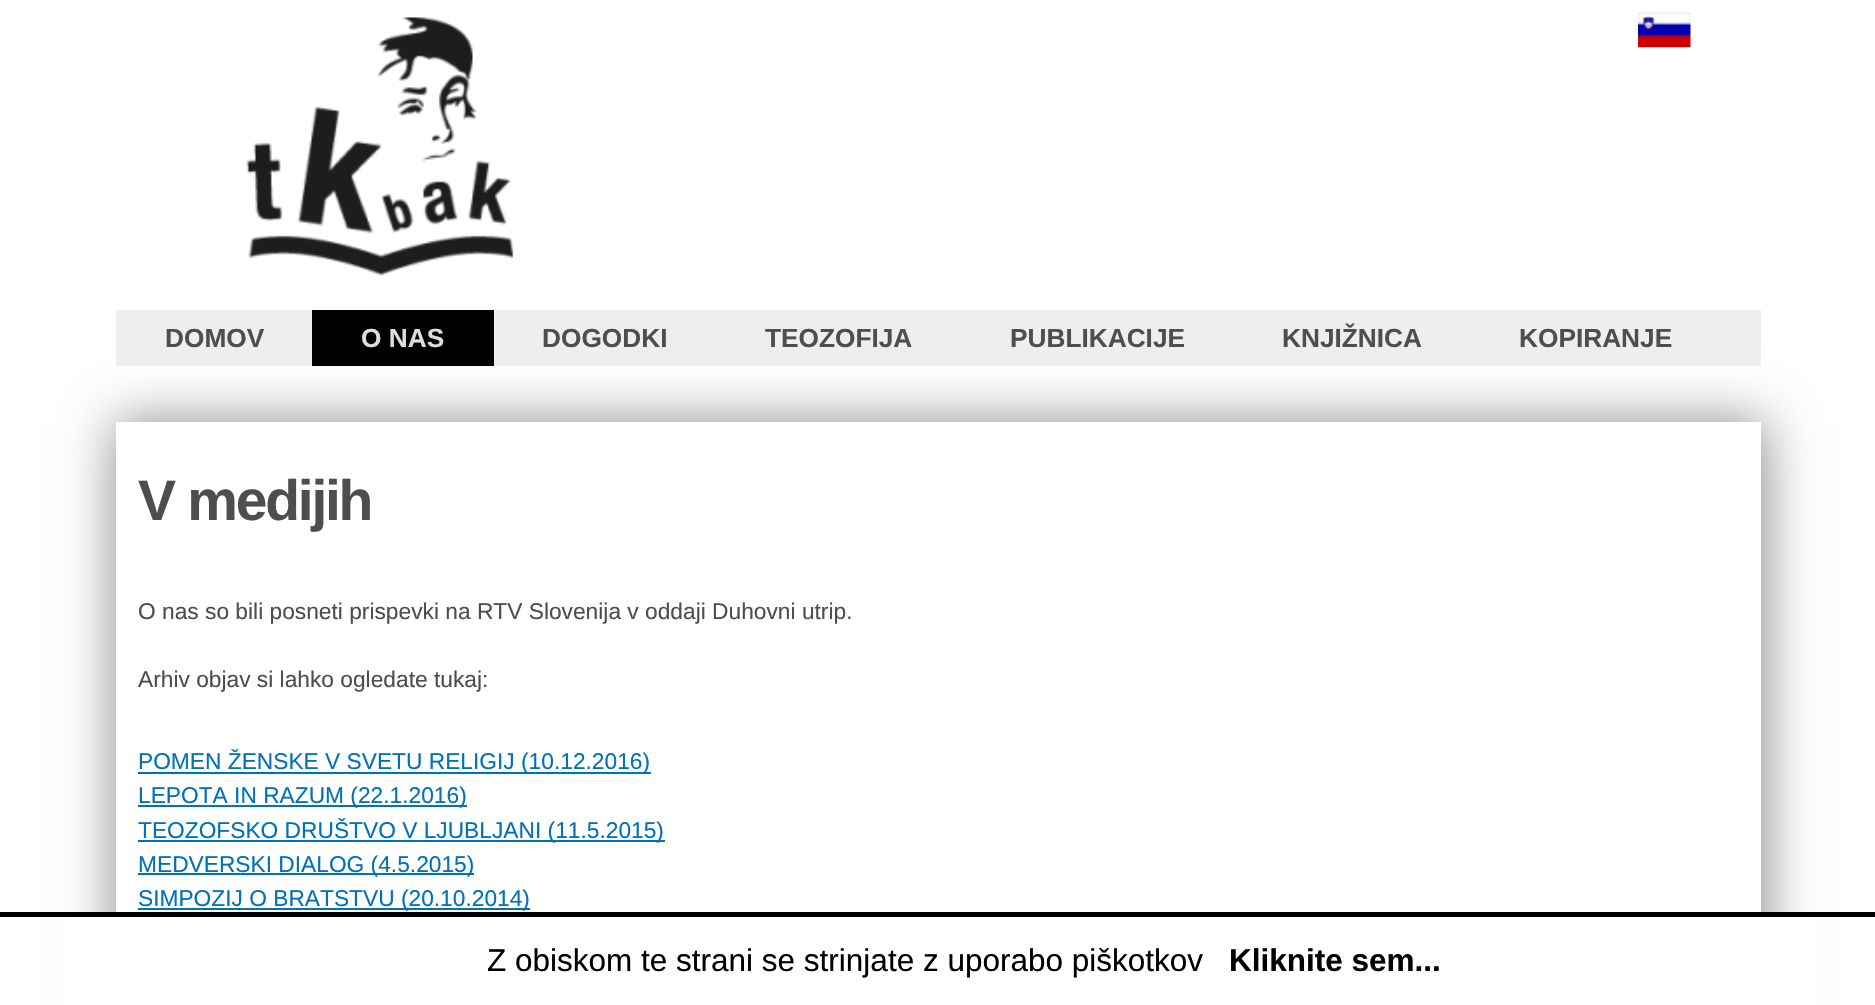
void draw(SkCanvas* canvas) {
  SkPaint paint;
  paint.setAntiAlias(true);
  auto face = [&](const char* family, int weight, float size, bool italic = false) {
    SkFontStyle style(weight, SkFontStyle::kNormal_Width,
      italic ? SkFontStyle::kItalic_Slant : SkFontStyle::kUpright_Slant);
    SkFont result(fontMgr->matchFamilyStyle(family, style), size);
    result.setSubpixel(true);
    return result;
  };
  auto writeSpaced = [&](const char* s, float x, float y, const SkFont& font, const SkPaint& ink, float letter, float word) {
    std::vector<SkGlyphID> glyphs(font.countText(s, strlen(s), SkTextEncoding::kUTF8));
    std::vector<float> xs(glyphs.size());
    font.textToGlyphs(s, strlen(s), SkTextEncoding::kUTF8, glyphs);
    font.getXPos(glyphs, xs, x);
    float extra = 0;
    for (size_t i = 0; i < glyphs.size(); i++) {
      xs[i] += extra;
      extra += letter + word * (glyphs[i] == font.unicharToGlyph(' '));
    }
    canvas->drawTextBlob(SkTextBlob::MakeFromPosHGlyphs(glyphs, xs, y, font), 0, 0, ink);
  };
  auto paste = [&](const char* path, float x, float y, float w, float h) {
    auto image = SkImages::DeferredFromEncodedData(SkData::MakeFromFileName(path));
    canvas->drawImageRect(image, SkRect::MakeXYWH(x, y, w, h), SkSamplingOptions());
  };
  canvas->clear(0xffffffff);
  paste("img/1.png", 246, 17, 268, 259);
  paste("img/2.png", 1638, 12, 53, 36);
  paint.setColor(0xff888888);
  paint.setMaskFilter(SkMaskFilter::MakeBlur(kNormal_SkBlurStyle, 25.5f));
  canvas->drawRect(SkRect::MakeXYWH(116, 422, 1648, 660), paint);
  paint.setMaskFilter(nullptr);
  {
    const struct { float x, y, w, h; SkColor color; } items[] = {
      {116, 310, 1645, 56, 0xffeeeeee},
      {312, 310, 182, 56, 0xff000000},
      {116, 422, 1645, 490, 0xffffffff},
      {138, 772, 513, 2, 0xff0071bb},
      {138, 805, 329, 2, 0xff0071bb},
      {138, 840, 527, 2, 0xff0071bb},
      {138, 873, 336, 2, 0xff0071bb},
      {138, 908, 392, 2, 0xff0071bb},
      {65, 917, 1750, 88, 0xffffffff},
      {0, 912, 1875, 5, 0xff000000},
    };
    for (auto [x, y, w, h, color] : items) {
      paint.setColor(color);
      canvas->drawRect(SkRect::MakeXYWH(x, y, w, h), paint);
    }
  }
  auto f0 = face("Liberation Sans", 700, 26.25f);
  paint.setColor(0xff4e4e4e);
  canvas->drawString("DOMOV", 165, 347, f0, paint);
  paint.setColor(0xffdedede);
  canvas->drawString("O NAS", 361, 347, f0, paint);
  paint.setColor(0xff4e4e4e);
  {
    const struct { const char* s; float x, y; } items[] = {
      {"DOGODKI", 542, 347},
      {"TEOZOFIJA", 765, 347},
      {"PUBLIKACIJE", 1010, 347},
      {"KNJIŽNICA", 1282, 347},
      {"KOPIRANJE", 1519, 347},
    };
    for (auto [s, x, y] : items) {
      canvas->drawString(s, x, y, f0, paint);
    }
  }
  auto f1 = face("Liberation Sans", 700, 57);
  writeSpaced("V medijih", 138, 520, f1, paint, -2.25f, 0);
  auto f2 = face("Liberation Sans", 400, 22.75f);
  canvas->drawString("O nas so bili posneti prispevki na RTV Slovenija v oddaji Duhovni utrip.", 138, 619, f2, paint);
  canvas->drawString("Arhiv objav si lahko ogledate tukaj:", 138, 687, f2, paint);
  paint.setColor(0xff0071bb);
  {
    const struct { const char* s; float x, y; } items[] = {
      {"POMEN ŽENSKE V SVETU RELIGIJ (10.12.2016)", 138, 769},
      {"LEPOTA IN RAZUM (22.1.2016)", 138, 803},
      {"TEOZOFSKO DRUŠTVO V LJUBLJANI (11.5.2015)", 138, 838},
      {"MEDVERSKI DIALOG (4.5.2015)", 138, 872},
      {"SIMPOZIJ O BRATSTVU (20.10.2014)", 138, 906},
    };
    for (auto [s, x, y] : items) {
      canvas->drawString(s, x, y, f2, paint);
    }
  }
  auto f3 = face("Liberation Sans", 400, 31.5f);
  paint.setColor(0xff000000);
  canvas->drawString("Z obiskom te strani se strinjate z uporabo piškotkov", 487, 971, f3, paint);
  auto f4 = face("Liberation Sans", 700, 31.5f);
  canvas->drawString("Kliknite sem...", 1229, 971, f4, paint);
}
